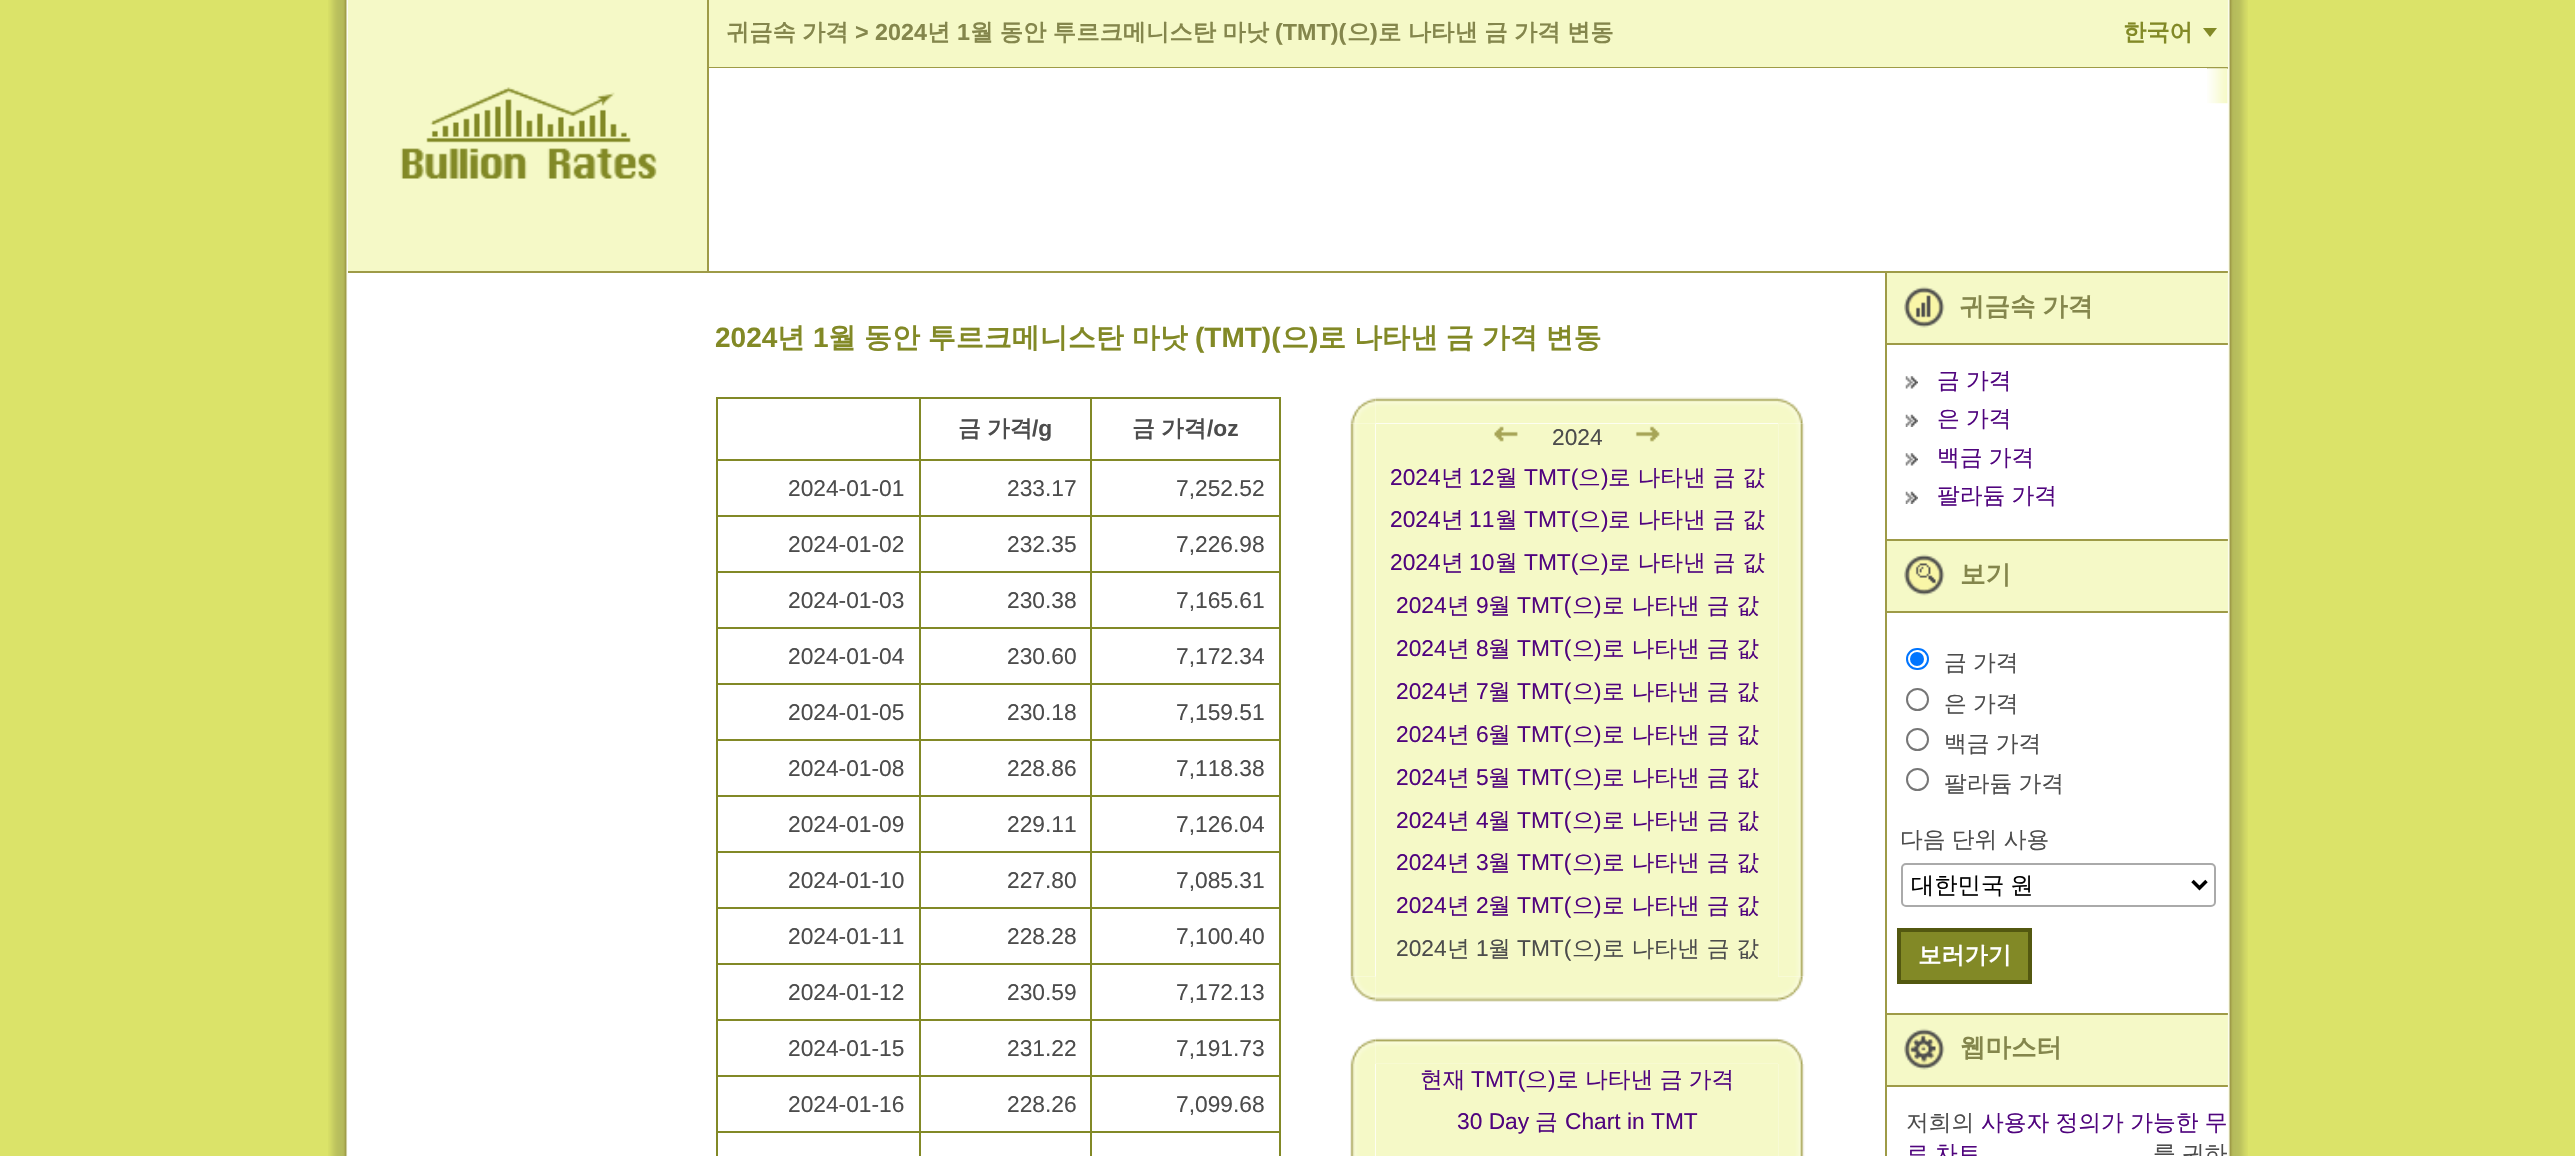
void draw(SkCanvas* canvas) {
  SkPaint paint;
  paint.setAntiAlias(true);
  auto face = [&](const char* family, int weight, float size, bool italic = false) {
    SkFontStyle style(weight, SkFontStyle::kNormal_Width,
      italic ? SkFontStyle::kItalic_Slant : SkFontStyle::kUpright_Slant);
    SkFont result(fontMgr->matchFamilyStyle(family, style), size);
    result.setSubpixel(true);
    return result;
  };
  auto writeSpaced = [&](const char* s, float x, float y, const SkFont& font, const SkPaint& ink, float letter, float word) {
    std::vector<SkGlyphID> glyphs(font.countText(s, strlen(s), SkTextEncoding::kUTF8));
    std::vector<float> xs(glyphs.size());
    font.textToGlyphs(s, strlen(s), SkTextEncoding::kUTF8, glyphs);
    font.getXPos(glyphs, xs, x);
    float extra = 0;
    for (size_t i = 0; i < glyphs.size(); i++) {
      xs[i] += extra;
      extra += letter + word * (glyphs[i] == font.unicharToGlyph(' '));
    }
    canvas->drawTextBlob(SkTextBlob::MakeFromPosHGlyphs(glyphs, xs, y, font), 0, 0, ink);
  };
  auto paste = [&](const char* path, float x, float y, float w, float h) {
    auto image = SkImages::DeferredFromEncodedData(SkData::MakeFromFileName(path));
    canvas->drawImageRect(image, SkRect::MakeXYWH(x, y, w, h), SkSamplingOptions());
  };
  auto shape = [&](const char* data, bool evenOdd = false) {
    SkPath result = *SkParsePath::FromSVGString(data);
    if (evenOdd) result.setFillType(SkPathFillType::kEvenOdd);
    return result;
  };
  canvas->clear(0xffdbe369);
  paste("img/1.png", 328, 0, 20, 1156);
  {
    const struct { float x, y, w, h; SkColor color; } items[] = {
      {348, 69, 1880, 1087, 0xffffffff},
      {348, 0, 359, 271, 0xfff5f9c7},
      {707, 0, 2, 273, 0xff9e9b47},
      {348, 271, 1880, 2, 0xff9e9b47},
    };
    for (auto [x, y, w, h, color] : items) {
      paint.setColor(color);
      canvas->drawRect(SkRect::MakeXYWH(x, y, w, h), paint);
    }
  }
  paste("img/2.png", 400, 87, 257, 92);
  paint.setColor(0xfff5f9c7);
  canvas->drawRect(SkRect::MakeXYWH(709, 0, 1519, 67), paint);
  paint.setColor(0xff9e9b47);
  canvas->drawRect(SkRect::MakeXYWH(709, 67, 1519, 2), paint);
  paint.setColor(0xff828926);
  canvas->drawPath(shape("M2203 28H2217L2210 37Z"), paint);
  paint.setColor(0xffffffff);
  canvas->drawRect(SkRect::MakeXYWH(709, 68, 1498, 1), paint);
  paste("img/3.png", 2207, 68, 21, 36);
  {
    const struct { float x, y, w, h; SkColor color; } items[] = {
      {716, 397, 565, 2, 0xff828926},
      {919, 399, 2, 61, 0xff828926},
      {716, 459, 205, 2, 0xff828926},
      {716, 399, 2, 61, 0xff828926},
      {1090, 399, 2, 61, 0xff828926},
      {921, 459, 171, 2, 0xff828926},
      {1279, 399, 2, 61, 0xff828926},
      {1092, 459, 189, 2, 0xff828926},
      {919, 460, 2, 56, 0xff828926},
      {716, 515, 205, 2, 0xff828926},
      {716, 460, 2, 56, 0xff828926},
      {1090, 460, 2, 56, 0xff828926},
      {921, 515, 171, 2, 0xff828926},
      {1279, 460, 2, 56, 0xff828926},
      {1092, 515, 189, 2, 0xff828926},
      {919, 516, 2, 56, 0xff828926},
      {716, 571, 205, 2, 0xff828926},
      {716, 516, 2, 56, 0xff828926},
      {1090, 516, 2, 56, 0xff828926},
      {921, 571, 171, 2, 0xff828926},
      {1279, 516, 2, 56, 0xff828926},
      {1092, 571, 189, 2, 0xff828926},
      {919, 572, 2, 56, 0xff828926},
      {716, 627, 205, 2, 0xff828926},
      {716, 572, 2, 56, 0xff828926},
      {1090, 572, 2, 56, 0xff828926},
      {921, 627, 171, 2, 0xff828926},
      {1279, 572, 2, 56, 0xff828926},
      {1092, 627, 189, 2, 0xff828926},
      {919, 628, 2, 56, 0xff828926},
      {716, 683, 205, 2, 0xff828926},
      {716, 628, 2, 56, 0xff828926},
      {1090, 628, 2, 56, 0xff828926},
      {921, 683, 171, 2, 0xff828926},
      {1279, 628, 2, 56, 0xff828926},
      {1092, 683, 189, 2, 0xff828926},
      {919, 684, 2, 56, 0xff828926},
      {716, 739, 205, 2, 0xff828926},
      {716, 684, 2, 56, 0xff828926},
      {1090, 684, 2, 56, 0xff828926},
      {921, 739, 171, 2, 0xff828926},
      {1279, 684, 2, 56, 0xff828926},
      {1092, 739, 189, 2, 0xff828926},
      {919, 740, 2, 56, 0xff828926},
      {716, 795, 205, 2, 0xff828926},
      {716, 740, 2, 56, 0xff828926},
      {1090, 740, 2, 56, 0xff828926},
      {921, 795, 171, 2, 0xff828926},
      {1279, 740, 2, 56, 0xff828926},
      {1092, 795, 189, 2, 0xff828926},
      {919, 796, 2, 56, 0xff828926},
      {716, 851, 205, 2, 0xff828926},
      {716, 796, 2, 56, 0xff828926},
      {1090, 796, 2, 56, 0xff828926},
      {921, 851, 171, 2, 0xff828926},
      {1279, 796, 2, 56, 0xff828926},
      {1092, 851, 189, 2, 0xff828926},
      {919, 852, 2, 56, 0xff828926},
      {716, 907, 205, 2, 0xff828926},
      {716, 852, 2, 56, 0xff828926},
      {1090, 852, 2, 56, 0xff828926},
      {921, 907, 171, 2, 0xff828926},
      {1279, 852, 2, 56, 0xff828926},
      {1092, 907, 189, 2, 0xff828926},
      {919, 908, 2, 56, 0xff828926},
      {716, 963, 205, 2, 0xff828926},
      {716, 908, 2, 56, 0xff828926},
      {1090, 908, 2, 56, 0xff828926},
      {921, 963, 171, 2, 0xff828926},
      {1279, 908, 2, 56, 0xff828926},
      {1092, 963, 189, 2, 0xff828926},
      {919, 964, 2, 56, 0xff828926},
      {716, 1019, 205, 2, 0xff828926},
      {716, 964, 2, 56, 0xff828926},
      {1090, 964, 2, 56, 0xff828926},
      {921, 1019, 171, 2, 0xff828926},
      {1279, 964, 2, 56, 0xff828926},
      {1092, 1019, 189, 2, 0xff828926},
      {919, 1020, 2, 56, 0xff828926},
      {716, 1075, 205, 2, 0xff828926},
      {716, 1020, 2, 56, 0xff828926},
      {1090, 1020, 2, 56, 0xff828926},
      {921, 1075, 171, 2, 0xff828926},
      {1279, 1020, 2, 56, 0xff828926},
      {1092, 1075, 189, 2, 0xff828926},
      {919, 1076, 2, 56, 0xff828926},
      {716, 1131, 205, 2, 0xff828926},
      {716, 1076, 2, 80, 0xff828926},
      {1090, 1076, 2, 56, 0xff828926},
      {921, 1131, 171, 2, 0xff828926},
      {1279, 1076, 2, 56, 0xff828926},
      {1092, 1131, 189, 2, 0xff828926},
      {919, 1132, 2, 24, 0xff828926},
      {1090, 1132, 2, 24, 0xff828926},
      {1279, 1132, 2, 24, 0xff828926},
    };
    for (auto [x, y, w, h, color] : items) {
      paint.setColor(color);
      canvas->drawRect(SkRect::MakeXYWH(x, y, w, h), paint);
    }
  }
  paste("img/4.png", 1350, 398, 26, 26);
  paste("img/5.png", 1375, 397, 403, 27);
  paste("img/6.png", 1778, 398, 25, 26);
  paste("img/7.png", 1350, 423, 26, 554);
  paint.setColor(0xfff5f9c7);
  canvas->drawRect(SkRect::MakeXYWH(1376, 424, 402, 553), paint);
  paste("img/8.png", 1494, 426, 24, 16);
  paste("img/9.png", 1635, 426, 25, 16);
  paste("img/10.png", 1778, 423, 27, 554);
  paste("img/11.png", 1350, 976, 26, 26);
  paste("img/12.png", 1375, 976, 403, 26);
  paste("img/13.png", 1778, 976, 26, 26);
  paste("img/14.png", 1350, 1039, 26, 25);
  paste("img/15.png", 1375, 1037, 403, 27);
  paste("img/16.png", 1778, 1039, 25, 25);
  paste("img/17.png", 1350, 1064, 26, 92);
  canvas->drawRect(SkRect::MakeXYWH(1376, 1064, 402, 92), paint);
  paste("img/18.png", 1778, 1064, 27, 92);
  {
    const struct { float x, y, w, h; SkColor color; } items[] = {
      {1887, 273, 341, 70, 0xfff5f9c7},
      {1885, 343, 343, 2, 0xff9e9b47},
      {1885, 273, 2, 72, 0xff9e9b47},
    };
    for (auto [x, y, w, h, color] : items) {
      paint.setColor(color);
      canvas->drawRect(SkRect::MakeXYWH(x, y, w, h), paint);
    }
  }
  paste("img/19.png", 1904, 286, 41, 42);
  canvas->drawRect(SkRect::MakeXYWH(1885, 539, 343, 2), paint);
  canvas->drawRect(SkRect::MakeXYWH(1885, 345, 2, 196), paint);
  paste("img/20.png", 1905, 376, 13, 13);
  paste("img/21.png", 1905, 414, 13, 13);
  paste("img/20.png", 1905, 453, 13, 13);
  paste("img/21.png", 1905, 491, 13, 13);
  {
    const struct { float x, y, w, h; SkColor color; } items[] = {
      {1887, 541, 341, 70, 0xfff5f9c7},
      {1885, 611, 343, 2, 0xff9e9b47},
      {1885, 541, 2, 72, 0xff9e9b47},
    };
    for (auto [x, y, w, h, color] : items) {
      paint.setColor(color);
      canvas->drawRect(SkRect::MakeXYWH(x, y, w, h), paint);
    }
  }
  paste("img/22.png", 1904, 554, 41, 42);
  canvas->drawRect(SkRect::MakeXYWH(1885, 1013, 343, 2), paint);
  canvas->drawRect(SkRect::MakeXYWH(1885, 613, 2, 402), paint);
  paint.setStroke(true);
  paint.setStrokeWidth(2);
  paint.setColor(0xff0075ff);
  canvas->drawRoundRect(SkRect::MakeXYWH(1907, 649, 21, 20), 10, 10, paint);
  paint.setStroke(false);
  canvas->drawCircle(1917, 659, 7, paint);
  paint.setStroke(true);
  paint.setColor(0xff767676);
  canvas->drawCircle(1917.5f, 699.5f, 10.5f, paint);
  canvas->drawCircle(1917.5f, 739.5f, 10.5f, paint);
  canvas->drawCircle(1917.5f, 779.5f, 10.5f, paint);
  paint.setColor(0xffaaaaaa);
  canvas->drawRoundRect(SkRect::MakeXYWH(1902, 864, 313, 42), 4, 4, paint);
  paint.setStrokeWidth(3.5f);
  paint.setColor(0xff000000);
  canvas->drawPath(shape("M2192.5 881L2199.5 888L2206.5 881"), paint);
  paint.setStroke(false);
  paint.setColor(0xff828926);
  canvas->drawRect(SkRect::MakeXYWH(1899, 930, 131, 52), paint);
  paint.setStroke(true);
  paint.setStrokeWidth(4);
  paint.setColor(0xff535810);
  canvas->drawRect(SkRect::MakeXYWH(1899, 930, 131, 52), paint);
  paint.setStroke(false);
  {
    const struct { float x, y, w, h; SkColor color; } items[] = {
      {1887, 1015, 341, 70, 0xfff5f9c7},
      {1885, 1085, 343, 2, 0xff9e9b47},
      {1885, 1015, 2, 141, 0xff9e9b47},
    };
    for (auto [x, y, w, h, color] : items) {
      paint.setColor(color);
      canvas->drawRect(SkRect::MakeXYWH(x, y, w, h), paint);
    }
  }
  paste("img/23.png", 1904, 1028, 41, 42);
  paste("img/24.png", 2227, 0, 21, 1156);
  auto f0 = face("WenQuanYi Zen Hei", 700, 23.3f);
  paint.setColor(0xff84864c);
  writeSpaced("귀금속 가격", 726, 40, f0, paint, 0, -1);
  auto f1 = face("Liberation Sans", 700, 23.3f);
  canvas->drawString("> 2024", 855, 40, f1, paint);
  canvas->drawString("년", 927, 40, f0, paint);
  canvas->drawString("1", 957, 40, f1, paint);
  writeSpaced("월 동안 투르크메니스탄 마낫", 970, 40, f0, paint, 0, -0.5f);
  canvas->drawString("(TMT)(", 1275, 40, f1, paint);
  canvas->drawString("으", 1347, 40, f0, paint);
  canvas->drawString(")", 1370, 40, f1, paint);
  writeSpaced("로 나타낸 금 가격 변동", 1378, 40, f0, paint, 0, -0.5f);
  paint.setColor(0xff828926);
  canvas->drawString("한국어", 2123, 40, f0, paint);
  auto f2 = face("Liberation Sans", 700, 28);
  canvas->drawString("2024", 715, 347, f2, paint);
  auto f3 = face("WenQuanYi Zen Hei", 700, 28);
  canvas->drawString("년", 777, 347, f3, paint);
  canvas->drawString("1", 813, 347, f2, paint);
  writeSpaced("월 동안 투르크메니스탄 마낫", 828, 347, f3, paint, 0, -0.5f);
  canvas->drawString("(TMT)(", 1195, 347, f2, paint);
  canvas->drawString("으", 1281, 347, f3, paint);
  canvas->drawString(")", 1309, 347, f2, paint);
  writeSpaced("로 나타낸 금 가격 변동", 1318, 347, f3, paint, 0, -0.5f);
  auto f4 = face("WenQuanYi Zen Hei", 700, 22.75f);
  paint.setColor(0xff4c4c4c);
  writeSpaced("금 가격", 958, 436, f4, paint, 0, -0.5f);
  auto f5 = face("Liberation Sans", 700, 22.75f);
  canvas->drawString("/g", 1032, 436, f5, paint);
  writeSpaced("금 가격", 1132, 436, f4, paint, 0, -0.5f);
  canvas->drawString("/oz", 1207, 436, f5, paint);
  auto f6 = face("Liberation Sans", 400, 22.75f);
  {
    const struct { const char* s; float x, y; } items[] = {
      {"2024-01-01", 788, 496},
      {"233.17", 1007, 496},
      {"7,252.52", 1176, 496},
      {"2024-01-02", 788, 552},
      {"232.35", 1007, 552},
      {"7,226.98", 1176, 552},
      {"2024-01-03", 788, 608},
      {"230.38", 1007, 608},
      {"7,165.61", 1176, 608},
      {"2024-01-04", 788, 664},
      {"230.60", 1007, 664},
      {"7,172.34", 1176, 664},
      {"2024-01-05", 788, 720},
      {"230.18", 1007, 720},
      {"7,159.51", 1176, 720},
      {"2024-01-08", 788, 776},
      {"228.86", 1007, 776},
      {"7,118.38", 1176, 776},
      {"2024-01-09", 788, 832},
      {"229.11", 1007, 832},
      {"7,126.04", 1176, 832},
      {"2024-01-10", 788, 888},
      {"227.80", 1007, 888},
      {"7,085.31", 1176, 888},
      {"2024-01-11", 788, 944},
      {"228.28", 1007, 944},
      {"7,100.40", 1176, 944},
      {"2024-01-12", 788, 1000},
      {"230.59", 1007, 1000},
      {"7,172.13", 1176, 1000},
      {"2024-01-15", 788, 1056},
      {"231.22", 1007, 1056},
      {"7,191.73", 1176, 1056},
      {"2024-01-16", 788, 1112},
      {"228.26", 1007, 1112},
      {"7,099.68", 1176, 1112},
      {"2024", 1552, 445},
    };
    for (auto [s, x, y] : items) {
      canvas->drawString(s, x, y, f6, paint);
    }
  }
  paint.setColor(0xff50047e);
  canvas->drawString("2024", 1390, 485, f6, paint);
  auto f7 = face("WenQuanYi Zen Hei", 500, 22.75f);
  canvas->drawString("년", 1441, 485, f7, paint);
  canvas->drawString("12", 1469, 485, f6, paint);
  canvas->drawString("월", 1495, 485, f7, paint);
  canvas->drawString("TMT(", 1524, 485, f6, paint);
  canvas->drawString("으", 1578, 485, f7, paint);
  canvas->drawString(")", 1601, 485, f6, paint);
  canvas->drawString("로 나타낸 금 값", 1608, 485, f7, paint);
  canvas->drawString("2024", 1390, 527, f6, paint);
  canvas->drawString("년", 1441, 527, f7, paint);
  canvas->drawString("11", 1469, 527, f6, paint);
  canvas->drawString("월", 1495, 527, f7, paint);
  canvas->drawString("TMT(", 1524, 527, f6, paint);
  canvas->drawString("으", 1578, 527, f7, paint);
  canvas->drawString(")", 1601, 527, f6, paint);
  canvas->drawString("로 나타낸 금 값", 1608, 527, f7, paint);
  canvas->drawString("2024", 1390, 570, f6, paint);
  canvas->drawString("년", 1441, 570, f7, paint);
  canvas->drawString("10", 1469, 570, f6, paint);
  canvas->drawString("월", 1495, 570, f7, paint);
  canvas->drawString("TMT(", 1524, 570, f6, paint);
  canvas->drawString("으", 1578, 570, f7, paint);
  canvas->drawString(")", 1601, 570, f6, paint);
  canvas->drawString("로 나타낸 금 값", 1608, 570, f7, paint);
  canvas->drawString("2024", 1396, 613, f6, paint);
  canvas->drawString("년", 1447, 613, f7, paint);
  canvas->drawString("9", 1476, 613, f6, paint);
  canvas->drawString("월", 1488, 613, f7, paint);
  canvas->drawString("TMT(", 1517, 613, f6, paint);
  canvas->drawString("으", 1572, 613, f7, paint);
  canvas->drawString(")", 1594, 613, f6, paint);
  canvas->drawString("로 나타낸 금 값", 1602, 613, f7, paint);
  canvas->drawString("2024", 1396, 656, f6, paint);
  canvas->drawString("년", 1447, 656, f7, paint);
  canvas->drawString("8", 1476, 656, f6, paint);
  canvas->drawString("월", 1488, 656, f7, paint);
  canvas->drawString("TMT(", 1517, 656, f6, paint);
  canvas->drawString("으", 1572, 656, f7, paint);
  canvas->drawString(")", 1594, 656, f6, paint);
  canvas->drawString("로 나타낸 금 값", 1602, 656, f7, paint);
  canvas->drawString("2024", 1396, 699, f6, paint);
  canvas->drawString("년", 1447, 699, f7, paint);
  canvas->drawString("7", 1476, 699, f6, paint);
  canvas->drawString("월", 1488, 699, f7, paint);
  canvas->drawString("TMT(", 1517, 699, f6, paint);
  canvas->drawString("으", 1572, 699, f7, paint);
  canvas->drawString(")", 1594, 699, f6, paint);
  canvas->drawString("로 나타낸 금 값", 1602, 699, f7, paint);
  canvas->drawString("2024", 1396, 742, f6, paint);
  canvas->drawString("년", 1447, 742, f7, paint);
  canvas->drawString("6", 1476, 742, f6, paint);
  canvas->drawString("월", 1488, 742, f7, paint);
  canvas->drawString("TMT(", 1517, 742, f6, paint);
  canvas->drawString("으", 1572, 742, f7, paint);
  canvas->drawString(")", 1594, 742, f6, paint);
  canvas->drawString("로 나타낸 금 값", 1602, 742, f7, paint);
  canvas->drawString("2024", 1396, 785, f6, paint);
  canvas->drawString("년", 1447, 785, f7, paint);
  canvas->drawString("5", 1476, 785, f6, paint);
  canvas->drawString("월", 1488, 785, f7, paint);
  canvas->drawString("TMT(", 1517, 785, f6, paint);
  canvas->drawString("으", 1572, 785, f7, paint);
  canvas->drawString(")", 1594, 785, f6, paint);
  canvas->drawString("로 나타낸 금 값", 1602, 785, f7, paint);
  canvas->drawString("2024", 1396, 828, f6, paint);
  canvas->drawString("년", 1447, 828, f7, paint);
  canvas->drawString("4", 1476, 828, f6, paint);
  canvas->drawString("월", 1488, 828, f7, paint);
  canvas->drawString("TMT(", 1517, 828, f6, paint);
  canvas->drawString("으", 1572, 828, f7, paint);
  canvas->drawString(")", 1594, 828, f6, paint);
  canvas->drawString("로 나타낸 금 값", 1602, 828, f7, paint);
  canvas->drawString("2024", 1396, 870, f6, paint);
  canvas->drawString("년", 1447, 870, f7, paint);
  canvas->drawString("3", 1476, 870, f6, paint);
  canvas->drawString("월", 1488, 870, f7, paint);
  canvas->drawString("TMT(", 1517, 870, f6, paint);
  canvas->drawString("으", 1572, 870, f7, paint);
  canvas->drawString(")", 1594, 870, f6, paint);
  canvas->drawString("로 나타낸 금 값", 1602, 870, f7, paint);
  canvas->drawString("2024", 1396, 913, f6, paint);
  canvas->drawString("년", 1447, 913, f7, paint);
  canvas->drawString("2", 1476, 913, f6, paint);
  canvas->drawString("월", 1488, 913, f7, paint);
  canvas->drawString("TMT(", 1517, 913, f6, paint);
  canvas->drawString("으", 1572, 913, f7, paint);
  canvas->drawString(")", 1594, 913, f6, paint);
  canvas->drawString("로 나타낸 금 값", 1602, 913, f7, paint);
  paint.setColor(0xff4c4c4c);
  canvas->drawString("2024", 1396, 956, f6, paint);
  canvas->drawString("년", 1447, 956, f7, paint);
  canvas->drawString("1", 1476, 956, f6, paint);
  canvas->drawString("월", 1488, 956, f7, paint);
  canvas->drawString("TMT(", 1517, 956, f6, paint);
  canvas->drawString("으", 1572, 956, f7, paint);
  canvas->drawString(")", 1594, 956, f6, paint);
  canvas->drawString("로 나타낸 금 값", 1602, 956, f7, paint);
  paint.setColor(0xff50047e);
  canvas->drawString("현재", 1420, 1087, f7, paint);
  canvas->drawString("TMT(", 1471, 1087, f6, paint);
  canvas->drawString("으", 1525, 1087, f7, paint);
  canvas->drawString(")", 1548, 1087, f6, paint);
  writeSpaced("로 나타낸 금 가격", 1556, 1087, f7, paint, 0, -0.5f);
  canvas->drawString("30 Day", 1457, 1129, f6, paint);
  canvas->drawString("금", 1535, 1129, f7, paint);
  canvas->drawString("Chart in TMT", 1565, 1129, f6, paint);
  auto f8 = face("WenQuanYi Zen Hei", 700, 25.5f);
  paint.setColor(0xff84864c);
  writeSpaced("귀금속 가격", 1959, 315, f8, paint, 0, -1);
  paint.setColor(0xff50047e);
  {
    const struct { const char* s; float x, y; } items[] = {
      {"금 가격", 1937, 388},
      {"은 가격", 1937, 426},
      {"백금 가격", 1937, 465},
      {"팔라듐 가격", 1937, 503},
    };
    for (auto [s, x, y] : items) {
      writeSpaced(s, x, y, f7, paint, 0, -0.5f);
    }
  }
  paint.setColor(0xff84864c);
  canvas->drawString("보기", 1960, 583, f8, paint);
  paint.setColor(0xff4c4c4c);
  {
    const struct { const char* s; float x, y; } items[] = {
      {"금 가격", 1944, 670},
      {"은 가격", 1944, 711},
      {"백금 가격", 1944, 751},
      {"팔라듐 가격", 1944, 791},
      {"다음 단위 사용", 1900, 847},
    };
    for (auto [s, x, y] : items) {
      writeSpaced(s, x, y, f7, paint, 0, -0.5f);
    }
  }
  auto f9 = face("WenQuanYi Zen Hei", 500, 23.3f);
  paint.setColor(0xff000000);
  writeSpaced("대한민국 원", 1911, 893, f9, paint, 0, -1);
  paint.setColor(0xffffffff);
  canvas->drawString("보러가기", 1918, 963, f0, paint);
  paint.setColor(0xff84864c);
  canvas->drawString("웹마스터", 1960, 1056, f8, paint);
  paint.setColor(0xff4c4c4c);
  canvas->drawString("저희의", 1906, 1130, f7, paint);
  paint.setColor(0xff50047e);
  writeSpaced("사용자 정의가 가능한 무", 1981, 1130, f7, paint, 0, -0.5f);
  writeSpaced("료 차트", 1906, 1161, f7, paint, 0, -0.5f);
  paint.setColor(0xff4c4c4c);
  writeSpaced("를 귀하", 2153, 1161, f7, paint, 0, -0.5f);
}
